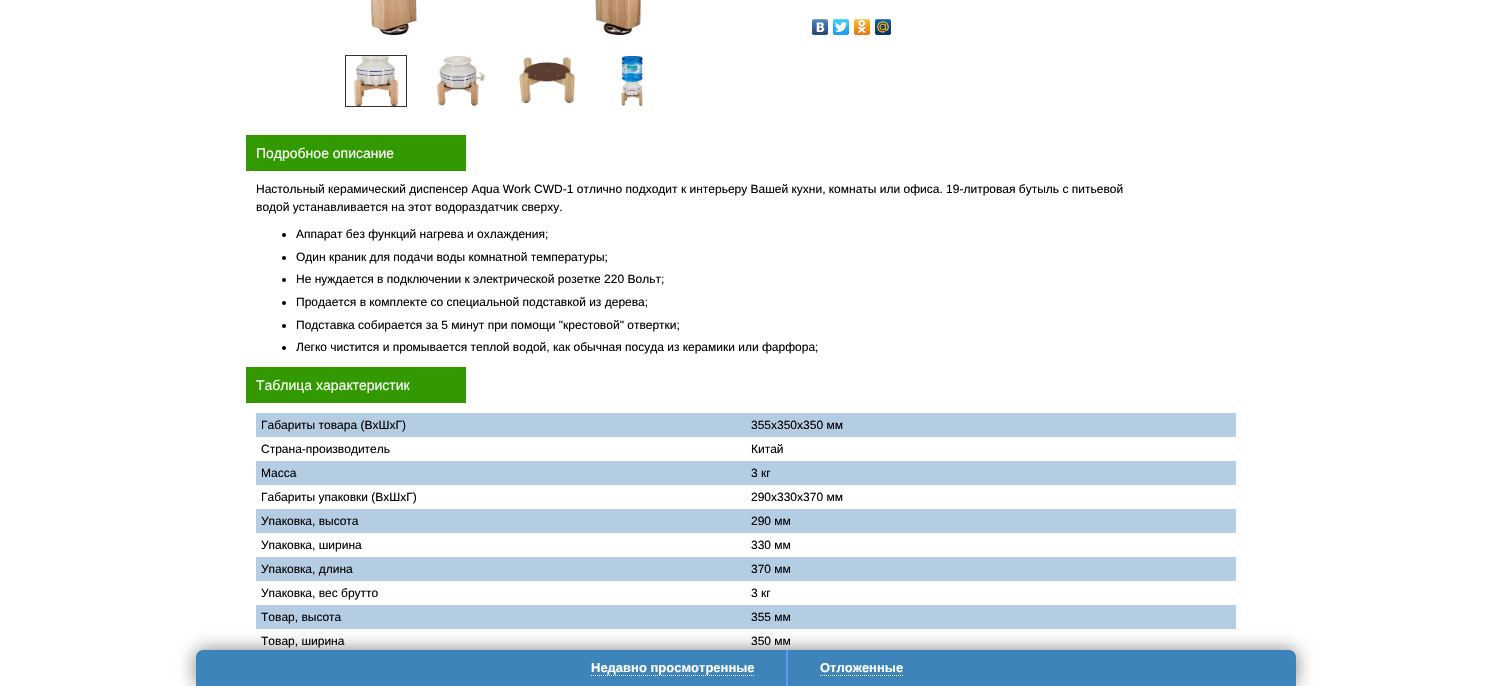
void draw(SkCanvas* canvas) {
  SkPaint paint;
  paint.setAntiAlias(true);
  auto face = [&](const char* family, int weight, float size, bool italic = false) {
    SkFontStyle style(weight, SkFontStyle::kNormal_Width,
      italic ? SkFontStyle::kItalic_Slant : SkFontStyle::kUpright_Slant);
    SkFont result(fontMgr->matchFamilyStyle(family, style), size);
    result.setSubpixel(true);
    return result;
  };
  auto paste = [&](const char* path, float x, float y, float w, float h) {
    auto image = SkImages::DeferredFromEncodedData(SkData::MakeFromFileName(path));
    canvas->drawImageRect(image, SkRect::MakeXYWH(x, y, w, h), SkSamplingOptions());
  };
  auto shape = [&](const char* data, bool evenOdd = false) {
    SkPath result = *SkParsePath::FromSVGString(data);
    if (evenOdd) result.setFillType(SkPathFillType::kEvenOdd);
    return result;
  };
  canvas->clear(0xffffffff);
  paste("img/1.png", 369, 0, 273, 35);
  paint.setStroke(true);
  paint.setStrokeWidth(1);
  paint.setColor(0xff333333);
  canvas->drawRect(SkRect::MakeXYWH(345.5f, 55.5f, 61, 51), paint);
  paste("img/2.png", 353, 56, 46, 50);
  paste("img/3.png", 436, 56, 50, 50);
  paste("img/4.png", 519, 57, 57, 47);
  paste("img/5.png", 621, 56, 22, 50);
  paste("img/6.png", 812, 19, 16, 16);
  paste("img/7.png", 833, 19, 16, 16);
  paste("img/8.png", 854, 19, 16, 16);
  paste("img/9.png", 875, 19, 16, 16);
  paint.setStroke(false);
  paint.setColor(0xff339900);
  canvas->drawRect(SkRect::MakeXYWH(246, 135, 220, 36), paint);
  paint.setColor(0xff000000);
  canvas->drawCircle(284, 235, 2, paint);
  canvas->drawCircle(284, 258, 2, paint);
  canvas->drawCircle(284, 280, 2, paint);
  canvas->drawCircle(284, 303, 2, paint);
  canvas->drawCircle(284, 326, 2, paint);
  canvas->drawCircle(284, 348, 2, paint);
  {
    const struct { float x, y, w, h; SkColor color; } items[] = {
      {246, 367, 220, 36, 0xff339900},
      {256, 413, 980, 24, 0xffb5cde3},
      {256, 461, 980, 24, 0xffb5cde3},
      {256, 509, 980, 24, 0xffb5cde3},
      {256, 557, 980, 24, 0xffb5cde3},
      {256, 605, 980, 24, 0xffb5cde3},
    };
    for (auto [x, y, w, h, color] : items) {
      paint.setColor(color);
      canvas->drawRect(SkRect::MakeXYWH(x, y, w, h), paint);
    }
  }
  paint.setColor(0xff3d84ba);
  canvas->drawPath(shape("M203 650H1289C1293 650 1296 653 1296 657V686H196V657C196 653 199 650 203 650Z"), paint);
  canvas->save();
  canvas->clipPath(shape("M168 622H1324V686H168ZM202 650H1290C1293.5 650 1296 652.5 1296 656V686H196V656C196 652.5 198.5 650 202 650Z", true), true);
  paint.setColor(0x80000000);
  paint.setMaskFilter(SkMaskFilter::MakeBlur(kNormal_SkBlurStyle, 9));
  canvas->drawRoundRect(SkRect::MakeXYWH(196, 650, 1100, 36), 6, 6, paint);
  paint.setMaskFilter(nullptr);
  canvas->restore();
  paint.setStroke(true);
  paint.setColor(0xffffffff);
  paint.setPathEffect(SkDashPathEffect::Make({{1, 1}}, 0));
  canvas->drawPath(shape("M591 675.5H754"), paint);
  paint.setPathEffect(nullptr);
  paint.setStroke(false);
  paint.setColor(0xff6098eb);
  canvas->drawRect(SkRect::MakeXYWH(786, 650, 2, 36), paint);
  paint.setStroke(true);
  paint.setColor(0xffffffff);
  paint.setPathEffect(SkDashPathEffect::Make({{1, 1}}, 0));
  canvas->drawPath(shape("M820 675.5H903"), paint);
  paint.setPathEffect(nullptr);
  auto f0 = face("Liberation Sans", 400, 14);
  paint.setStroke(false);
  canvas->drawString("Подробное описание", 256, 158, f0, paint);
  auto f1 = face("Liberation Sans", 400, 12);
  paint.setColor(0xff000000);
  {
    const struct { const char* s; float x, y; } items[] = {
      {"Настольный керамический диспенсер Aqua Work CWD-1 отлично подходит к интерьеру Вашей кухни, комнаты или офиса. 19-литровая бутыль с питьевой", 256, 193},
      {"водой устанавливается на этот водораздатчик сверху.", 256, 211},
      {"Аппарат без функций нагрева и охлаждения;", 296, 238},
      {"Один краник для подачи воды комнатной температуры;", 296, 261},
      {"Не нуждается в подключении к электрической розетке 220 Вольт;", 296, 283},
      {"Продается в комплекте со специальной подставкой из дерева;", 296, 306},
      {"Подставка собирается за 5 минут при помощи \"крестовой\" отвертки;", 296, 329},
      {"Легко чистится и промывается теплой водой, как обычная посуда из керамики или фарфора;", 296, 351},
    };
    for (auto [s, x, y] : items) {
      canvas->drawString(s, x, y, f1, paint);
    }
  }
  paint.setColor(0xffffffff);
  canvas->drawString("Таблица характеристик", 256, 390, f0, paint);
  paint.setColor(0xff000000);
  {
    const struct { const char* s; float x, y; } items[] = {
      {"Габариты товара (ВхШхГ)", 261, 429},
      {"355x350х350 мм", 751, 429},
      {"Страна-производитель", 261, 453},
      {"Китай", 751, 453},
      {"Масса", 261, 477},
      {"3 кг", 751, 477},
      {"Габариты упаковки (ВхШхГ)", 261, 501},
      {"290x330х370 мм", 751, 501},
      {"Упаковка, высота", 261, 525},
      {"290 мм", 751, 525},
      {"Упаковка, ширина", 261, 549},
      {"330 мм", 751, 549},
      {"Упаковка, длина", 261, 573},
      {"370 мм", 751, 573},
      {"Упаковка, вес брутто", 261, 597},
      {"3 кг", 751, 597},
      {"Товар, высота", 261, 621},
      {"355 мм", 751, 621},
      {"Товар, ширина", 261, 645},
      {"350 мм", 751, 645},
    };
    for (auto [s, x, y] : items) {
      canvas->drawString(s, x, y, f1, paint);
    }
  }
  auto f2 = face("Liberation Sans", 700, 13);
  paint.setColor(0xffffffff);
  canvas->drawString("Недавно просмотренные", 591, 672, f2, paint);
  canvas->drawString("Отложенные", 820, 672, f2, paint);
}
